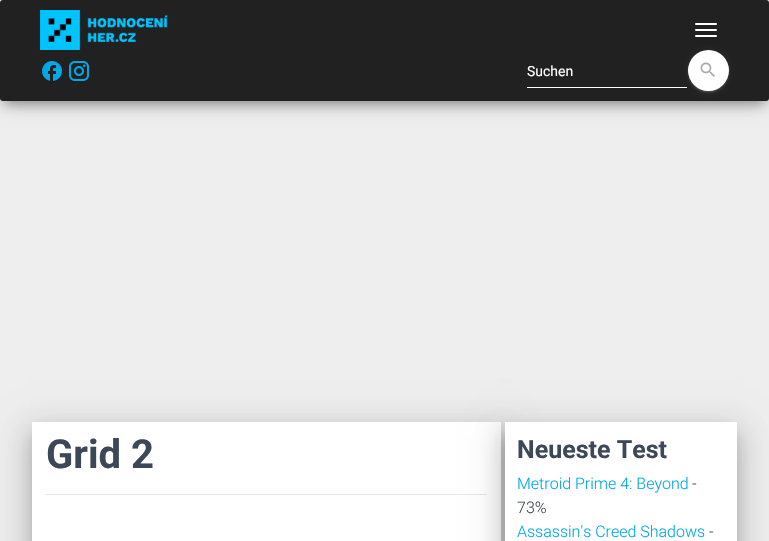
void draw(SkCanvas* canvas) {
  SkPaint paint;
  paint.setAntiAlias(true);
  auto face = [&](const char* family, int weight, float size, bool italic = false) {
    SkFontStyle style(weight, SkFontStyle::kNormal_Width,
      italic ? SkFontStyle::kItalic_Slant : SkFontStyle::kUpright_Slant);
    SkFont result(fontMgr->matchFamilyStyle(family, style), size);
    result.setSubpixel(true);
    return result;
  };
  auto paste = [&](const char* path, float x, float y, float w, float h) {
    auto image = SkImages::DeferredFromEncodedData(SkData::MakeFromFileName(path));
    canvas->drawImageRect(image, SkRect::MakeXYWH(x, y, w, h), SkSamplingOptions());
  };
  canvas->clear(0xffeeeeee);
  paint.setColor(0x75212121);
  paint.setMaskFilter(SkMaskFilter::MakeBlur(kNormal_SkBlurStyle, 6));
  canvas->drawRect(SkRect::MakeXYWH(5, 12, 759, 91), paint);
  paint.setMaskFilter(nullptr);
  paint.setColor(0x24000000);
  paint.setMaskFilter(SkMaskFilter::MakeBlur(kNormal_SkBlurStyle, 10));
  canvas->drawRoundRect(SkRect::MakeXYWH(0, 4, 769, 101), 3, 3, paint);
  paint.setMaskFilter(nullptr);
  paint.setColor(0xff212121);
  canvas->drawRoundRect(SkRect::MakeXYWH(0, 0, 769, 101), 3, 3, paint);
  paste("img/1.png", 40, 10, 128, 40);
  paint.setColor(0xffffffff);
  canvas->drawRoundRect(SkRect::MakeXYWH(695, 23, 22, 2), 1, 1, paint);
  canvas->drawRoundRect(SkRect::MakeXYWH(695, 29, 22, 2), 1, 1, paint);
  canvas->drawRoundRect(SkRect::MakeXYWH(695, 35, 22, 2), 1, 1, paint);
  paste("img/2.png", 42, 61, 20, 20);
  paste("img/3.png", 69, 61, 20, 20);
  canvas->drawRect(SkRect::MakeXYWH(527, 87, 160, 1), paint);
  paint.setColor(0x1f999999);
  paint.setMaskFilter(SkMaskFilter::MakeBlur(kNormal_SkBlurStyle, 2.5f));
  canvas->drawRoundRect(SkRect::MakeXYWH(688, 51, 41, 41), 20.5f, 20.5f, paint);
  paint.setMaskFilter(nullptr);
  paint.setColor(0x33999999);
  paint.setMaskFilter(SkMaskFilter::MakeBlur(kNormal_SkBlurStyle, 0.5f));
  canvas->drawRoundRect(SkRect::MakeXYWH(690, 55, 37, 37), 18.5f, 18.5f, paint);
  paint.setMaskFilter(nullptr);
  paint.setColor(0x24999999);
  paint.setMaskFilter(SkMaskFilter::MakeBlur(kNormal_SkBlurStyle, 1));
  canvas->drawRoundRect(SkRect::MakeXYWH(688, 52, 41, 41), 20.5f, 20.5f, paint);
  paint.setMaskFilter(nullptr);
  paint.setColor(0xffffffff);
  canvas->drawCircle(708.5f, 70.5f, 20.5f, paint);
  paste("img/4.png", 700, 62, 15, 15);
  paint.setColor(0x33000000);
  paint.setMaskFilter(SkMaskFilter::MakeBlur(kNormal_SkBlurStyle, 5));
  canvas->drawRect(SkRect::MakeXYWH(37, 435, 459, 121), paint);
  paint.setMaskFilter(nullptr);
  paint.setColor(0x1f000000);
  paint.setMaskFilter(SkMaskFilter::MakeBlur(kNormal_SkBlurStyle, 15));
  canvas->drawRect(SkRect::MakeXYWH(27, 423, 479, 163), paint);
  paint.setMaskFilter(nullptr);
  paint.setColor(0x24000000);
  paint.setMaskFilter(SkMaskFilter::MakeBlur(kNormal_SkBlurStyle, 12));
  canvas->drawRect(SkRect::MakeXYWH(30, 436, 473, 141), paint);
  paint.setMaskFilter(nullptr);
  paint.setColor(0xffffffff);
  canvas->drawRect(SkRect::MakeXYWH(32, 422, 469, 119), paint);
  paint.setColor(0xffe6e6e6);
  canvas->drawRect(SkRect::MakeXYWH(46, 494, 441, 1), paint);
  paint.setColor(0x33000000);
  paint.setMaskFilter(SkMaskFilter::MakeBlur(kNormal_SkBlurStyle, 5));
  canvas->drawRect(SkRect::MakeXYWH(510, 435, 222, 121), paint);
  paint.setMaskFilter(nullptr);
  paint.setColor(0x1f000000);
  paint.setMaskFilter(SkMaskFilter::MakeBlur(kNormal_SkBlurStyle, 15));
  canvas->drawRect(SkRect::MakeXYWH(500, 423, 242, 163), paint);
  paint.setMaskFilter(nullptr);
  paint.setColor(0x24000000);
  paint.setMaskFilter(SkMaskFilter::MakeBlur(kNormal_SkBlurStyle, 12));
  canvas->drawRect(SkRect::MakeXYWH(503, 436, 236, 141), paint);
  paint.setMaskFilter(nullptr);
  paint.setColor(0xffffffff);
  canvas->drawRect(SkRect::MakeXYWH(505, 422, 232, 119), paint);
  auto f0 = face("Roboto", 400, 14);
  canvas->drawString("Suchen", 527, 76, f0, paint);
  auto f1 = face("Roboto", 700, 40);
  paint.setColor(0xff3c4858);
  canvas->drawString("Grid 2", 46, 468, f1, paint);
  auto f2 = face("Roboto", 700, 25);
  canvas->drawString("Neueste Test", 517, 458, f2, paint);
  auto f3 = face("Roboto", 300, 16);
  paint.setColor(0xff00a9e6);
  canvas->drawString("Metroid Prime 4: Beyond", 517, 489, f3, paint);
  paint.setColor(0xff3c4858);
  canvas->drawString("-", 692, 489, f3, paint);
  canvas->drawString("73%", 517, 513, f3, paint);
  paint.setColor(0xff00a9e6);
  canvas->drawString("Assassin's Creed Shadows", 517, 537, f3, paint);
  paint.setColor(0xff3c4858);
  canvas->drawString("-", 709, 537, f3, paint);
}
